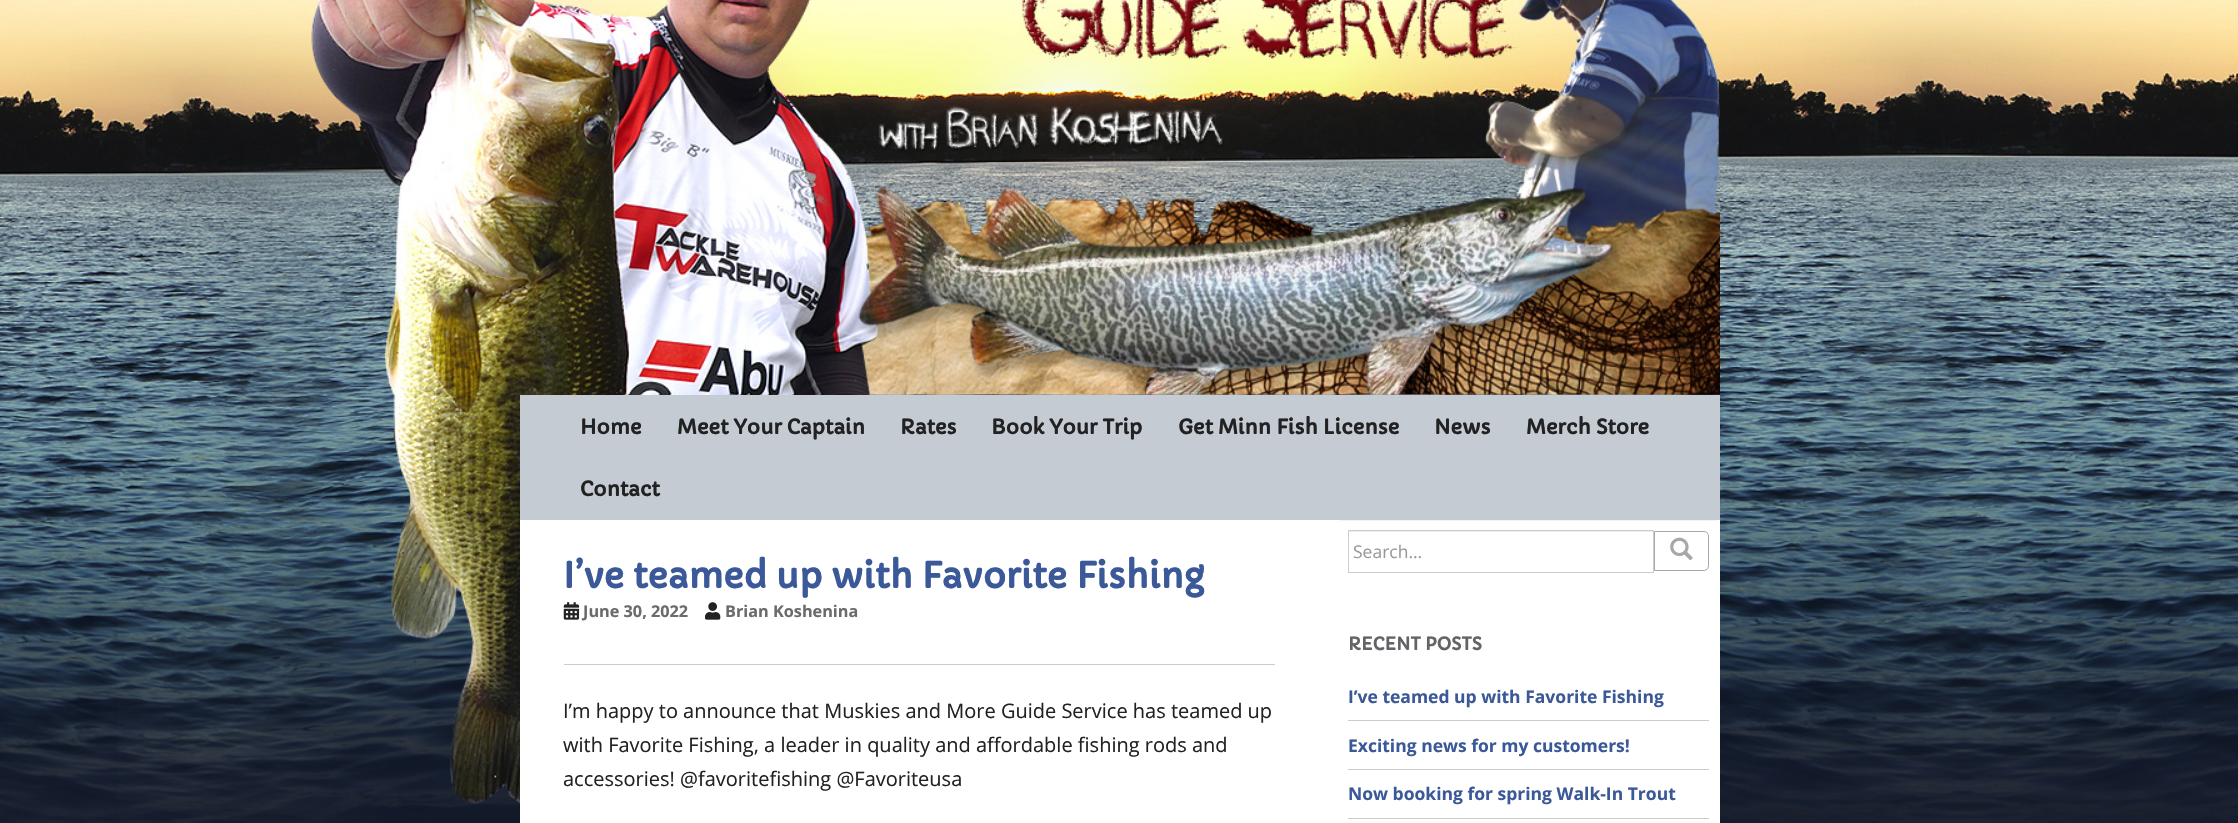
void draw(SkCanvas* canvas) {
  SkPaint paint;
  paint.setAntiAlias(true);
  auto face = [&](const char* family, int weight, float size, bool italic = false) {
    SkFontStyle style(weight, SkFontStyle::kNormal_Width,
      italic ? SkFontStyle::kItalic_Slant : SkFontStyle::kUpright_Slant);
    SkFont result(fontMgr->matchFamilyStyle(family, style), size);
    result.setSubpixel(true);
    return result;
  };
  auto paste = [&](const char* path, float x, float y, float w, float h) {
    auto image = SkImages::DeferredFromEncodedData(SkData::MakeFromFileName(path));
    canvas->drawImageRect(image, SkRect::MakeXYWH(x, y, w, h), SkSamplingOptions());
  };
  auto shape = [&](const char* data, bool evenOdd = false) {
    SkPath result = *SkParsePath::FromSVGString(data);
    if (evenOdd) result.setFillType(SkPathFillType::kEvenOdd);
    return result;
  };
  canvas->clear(0xffffffff);
  paste("img/1.png", 0, 0, 2238, 823);
  paste("img/2.png", 520, 0, 1200, 395);
  {
    const struct { float x, y, w, h; SkColor color; } items[] = {
      {520, 395, 1200, 125, 0xffc4cbd3},
      {520, 520, 1200, 303, 0xffffffff},
      {564, 664, 711, 1, 0xffcccccc},
    };
    for (auto [x, y, w, h, color] : items) {
      paint.setColor(color);
      canvas->drawRect(SkRect::MakeXYWH(x, y, w, h), paint);
    }
  }
  paste("img/3.png", 563, 602, 17, 18);
  paste("img/4.png", 705, 602, 16, 18);
  paint.setColor(0xfff2f2f2);
  canvas->drawPath(shape("M1342 521H1714C1717 521 1719 523 1719 526V525C1719 522 1717 520 1714 520H1343C1340 520 1338 522 1338 525V526C1338 523 1340 521 1342 521Z"), paint);
  paint.setColor(0xffececec);
  canvas->drawRect(SkRect::MakeXYWH(1349, 531, 304, 1), paint);
  paint.setStroke(true);
  paint.setStrokeWidth(1);
  paint.setColor(0xffcccccc);
  canvas->drawRect(SkRect::MakeXYWH(1348.5f, 530.5f, 305, 42), paint);
  paint.setColor(0xffa8a8a8);
  canvas->drawPath(shape("M1654.5 531.5H1704C1706.5 531.5 1708.5 533.5 1708.5 536V566C1708.5 568.5 1706.5 570.5 1704 570.5H1654.5Z"), paint);
  paste("img/5.png", 1670, 537, 23, 24);
  paint.setStroke(false);
  {
    const struct { float x, y, w, h; SkColor color; } items[] = {
      {1348, 720, 361, 1, 0xffcccccc},
      {1348, 769, 361, 1, 0xffcccccc},
      {1348, 818, 361, 1, 0xffcccccc},
    };
    for (auto [x, y, w, h, color] : items) {
      paint.setColor(color);
      canvas->drawRect(SkRect::MakeXYWH(x, y, w, h), paint);
    }
  }
  auto f0 = face("Capriola", 700, 20);
  paint.setColor(0xff222222);
  {
    const struct { const char* s; float x, y; } items[] = {
      {"Home", 580, 434},
      {"Meet Your Captain", 677, 434},
      {"Rates", 900, 434},
      {"Book Your Trip", 991, 434},
      {"Get Minn Fish License", 1178, 434},
      {"News", 1434, 434},
      {"Merch Store", 1526, 434},
      {"Contact", 580, 496},
    };
    for (auto [s, x, y] : items) {
      canvas->drawString(s, x, y, f0, paint);
    }
  }
  auto f1 = face("Capriola", 700, 35);
  paint.setColor(0xff3b5998);
  canvas->drawString("I’ve teamed up with Favorite Fishing", 563, 588, f1, paint);
  auto f2 = face("Open Sans", 700, 16.25f);
  paint.setColor(0xff6b6b6b);
  canvas->drawString("June 30, 2022", 583, 617, f2, paint);
  canvas->drawString("Brian Koshenina", 725, 617, f2, paint);
  auto f3 = face("Open Sans", 400, 20);
  paint.setColor(0xff222222);
  {
    const struct { const char* s; float x, y; } items[] = {
      {"I’m happy to announce that Muskies and More Guide Service has teamed up", 563, 718},
      {"with Favorite Fishing, a leader in quality and affordable fishing rods and", 563, 752},
      {"accessories! @favoritefishing @Favoriteusa", 563, 786},
    };
    for (auto [s, x, y] : items) {
      canvas->drawString(s, x, y, f3, paint);
    }
  }
  auto f4 = face("Open Sans", 400, 17.5f);
  paint.setColor(0xff999999);
  canvas->drawString("Search…", 1353, 558, f4, paint);
  auto f5 = face("Capriola", 700, 17.5f);
  paint.setColor(0xff636467);
  canvas->drawString("RECENT POSTS", 1348, 650, f5, paint);
  auto f6 = face("Open Sans", 700, 17.5f);
  paint.setColor(0xff3b5998);
  {
    const struct { const char* s; float x, y; } items[] = {
      {"I’ve teamed up with Favorite Fishing", 1348, 703},
      {"Exciting news for my customers!", 1348, 752},
      {"Now booking for spring Walk-In Trout", 1348, 800},
    };
    for (auto [s, x, y] : items) {
      canvas->drawString(s, x, y, f6, paint);
    }
  }
}
